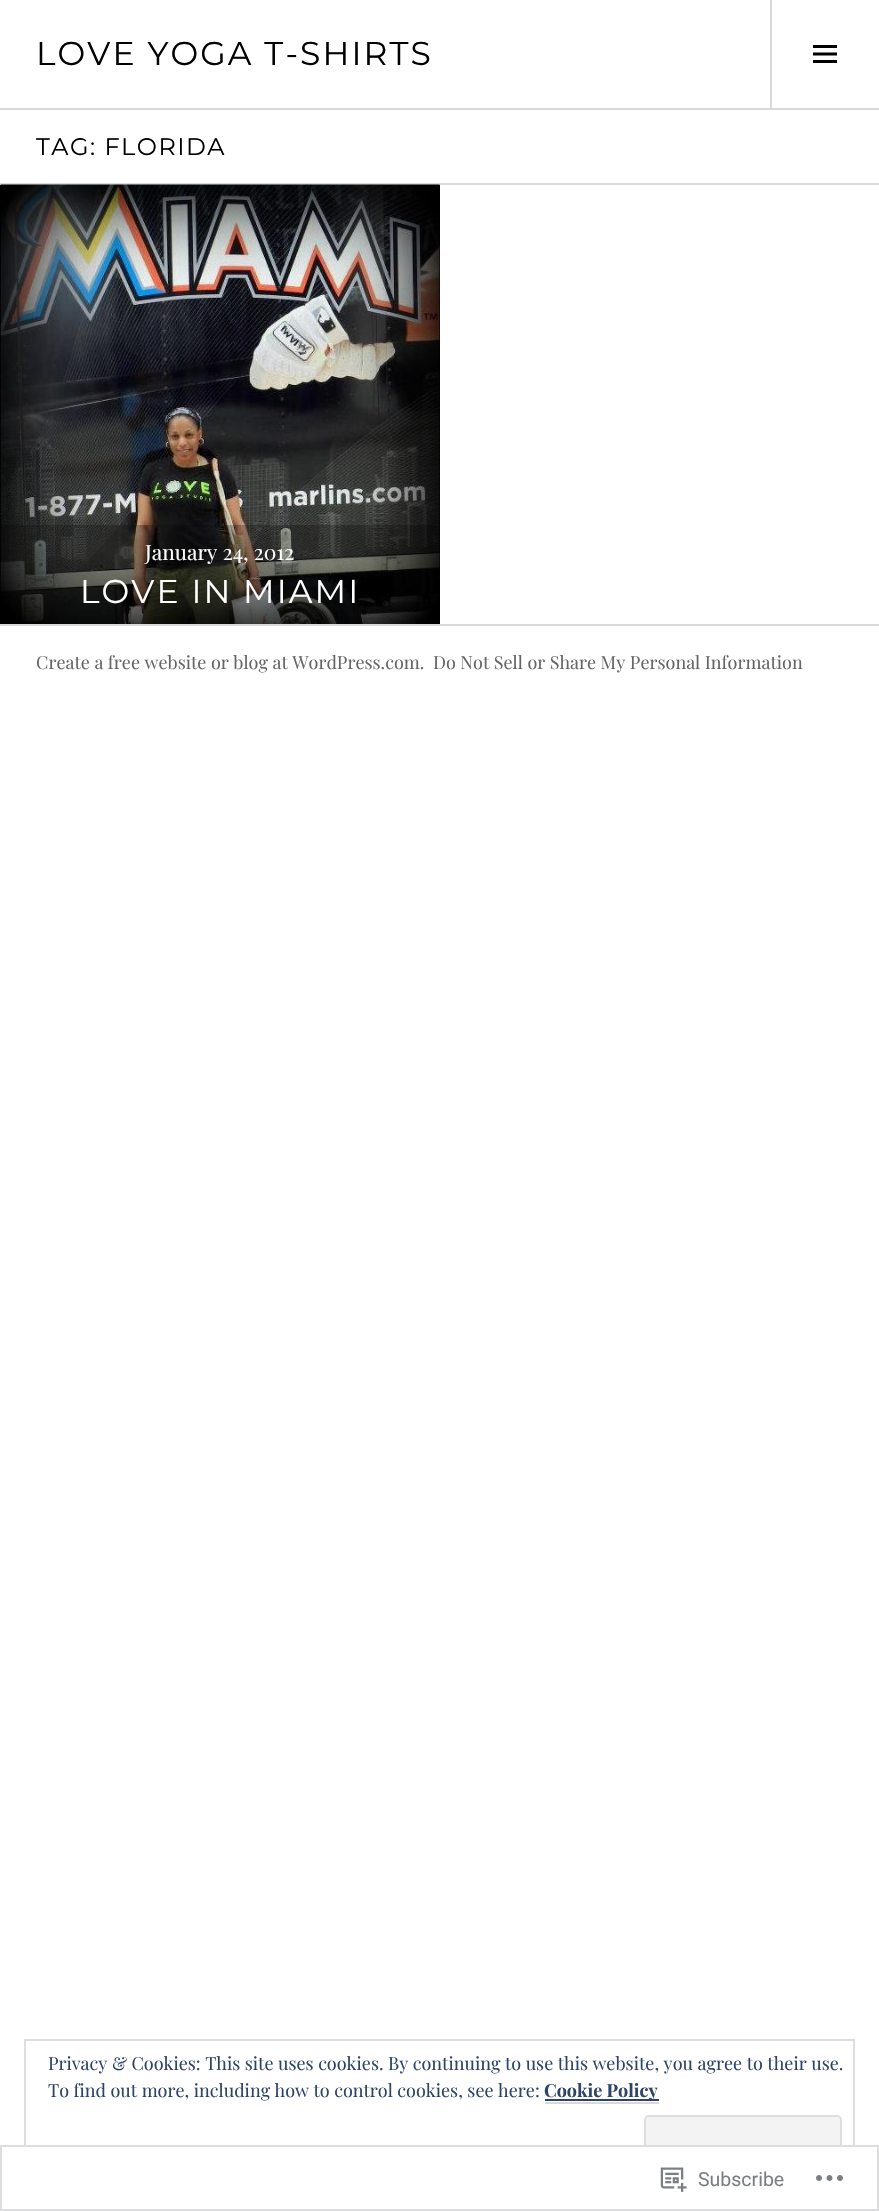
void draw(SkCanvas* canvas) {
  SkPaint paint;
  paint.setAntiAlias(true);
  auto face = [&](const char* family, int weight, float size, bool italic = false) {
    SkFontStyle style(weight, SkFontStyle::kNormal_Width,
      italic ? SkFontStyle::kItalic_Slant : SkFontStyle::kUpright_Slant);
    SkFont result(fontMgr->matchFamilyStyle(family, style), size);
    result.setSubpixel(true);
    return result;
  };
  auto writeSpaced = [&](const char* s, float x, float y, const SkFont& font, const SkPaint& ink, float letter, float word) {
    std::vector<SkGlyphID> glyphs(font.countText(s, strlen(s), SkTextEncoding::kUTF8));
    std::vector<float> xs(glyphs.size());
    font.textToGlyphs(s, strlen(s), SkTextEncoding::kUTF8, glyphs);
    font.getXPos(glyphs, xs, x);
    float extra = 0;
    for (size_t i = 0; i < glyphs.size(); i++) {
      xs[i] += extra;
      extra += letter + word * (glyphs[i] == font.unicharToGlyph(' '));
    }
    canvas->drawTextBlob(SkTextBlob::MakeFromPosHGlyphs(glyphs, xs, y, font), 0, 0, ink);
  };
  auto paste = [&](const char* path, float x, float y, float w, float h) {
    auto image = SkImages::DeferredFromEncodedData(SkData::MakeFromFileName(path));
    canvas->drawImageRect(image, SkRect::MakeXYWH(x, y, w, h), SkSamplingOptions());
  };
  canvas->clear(0xffffffff);
  paint.setColor(0xffd9d9d9);
  canvas->drawRect(SkRect::MakeXYWH(0, 108, 879, 2), paint);
  canvas->drawRect(SkRect::MakeXYWH(770, 0, 2, 108), paint);
  paste("img/1.png", 813, 45, 24, 18);
  canvas->drawRect(SkRect::MakeXYWH(0, 183, 879, 2), paint);
  paint.setColor(0xff000000);
  canvas->drawRect(SkRect::MakeXYWH(0, 185, 440, 439), paint);
  paste("img/2.png", 0, 184, 440, 440);
  paint.setColor(0x40000000);
  canvas->drawRect(SkRect::MakeXYWH(1, 525, 439, 99), paint);
  paint.setColor(0xffd9d9d9);
  canvas->drawRect(SkRect::MakeXYWH(0, 624, 879, 2), paint);
  paint.setStroke(true);
  paint.setStrokeWidth(2);
  paint.setColor(0xffdedede);
  canvas->drawRect(SkRect::MakeXYWH(25, 2040, 829, 146), paint);
  paint.setStroke(false);
  paint.setColor(0xffd9d9d9);
  canvas->drawRect(SkRect::MakeXYWH(545, 2102, 114, 2), paint);
  paint.setColor(0xff2e4467);
  canvas->drawRect(SkRect::MakeXYWH(545, 2099, 114, 2), paint);
  paint.setColor(0xfff3f3f3);
  canvas->drawRoundRect(SkRect::MakeXYWH(645, 2116, 196, 57), 4, 4, paint);
  paint.setStroke(true);
  paint.setColor(0xffdedede);
  canvas->drawRoundRect(SkRect::MakeXYWH(645, 2116, 196, 57), 4, 4, paint);
  paint.setStroke(false);
  paint.setColor(0xfaffffff);
  canvas->drawRect(SkRect::MakeXYWH(24, 2145, 831, 42), paint);
  paint.setStroke(true);
  paint.setColor(0xfadcdcde);
  canvas->drawRect(SkRect::MakeXYWH(1, 2146, 877, 64), paint);
  paste("img/3.png", 660, 2167, 27, 25);
  paste("img/4.png", 816, 2175, 27, 6);
  auto f0 = face("Montserrat", 400, 33);
  paint.setStroke(false);
  paint.setColor(0xff000000);
  writeSpaced("LOVE YOGA T-SHIRTS", 36, 65, f0, paint, 2.1f, 0);
  auto f1 = face("Montserrat", 400, 24);
  writeSpaced("TAG: FLORIDA", 36, 155, f1, paint, 1.5f, 0);
  auto f2 = face("Playfair Display", 400, 21);
  paint.setColor(0xffffffff);
  canvas->drawString("January 24, 2012", 145, 560, f2, paint);
  writeSpaced("LOVE IN MIAMI", 80, 603, f0, paint, 2.1f, 0);
  auto f3 = face("Playfair Display", 400, 18);
  paint.setColor(0xff666666);
  canvas->drawString("Create a free website or blog at WordPress.com.", 36, 669, f3, paint);
  canvas->drawString("Do Not Sell or Share My Personal Information", 433, 669, f3, paint);
  paint.setColor(0xff2e4467);
  canvas->drawString("Privacy & Cookies: This site uses cookies. By continuing to use this website, you agree to their use.", 48, 2070, f3, paint);
  canvas->drawString("To find out more, including how to control cookies, see here:", 48, 2097, f3, paint);
  auto f4 = face("Playfair Display", 700, 18);
  canvas->drawString("Cookie Policy", 544, 2097, f4, paint);
  auto f5 = face("Roboto", 400, 19.5f);
  paint.setColor(0xff7b7f84);
  canvas->drawString("Subscribe", 698, 2186, f5, paint);
}
